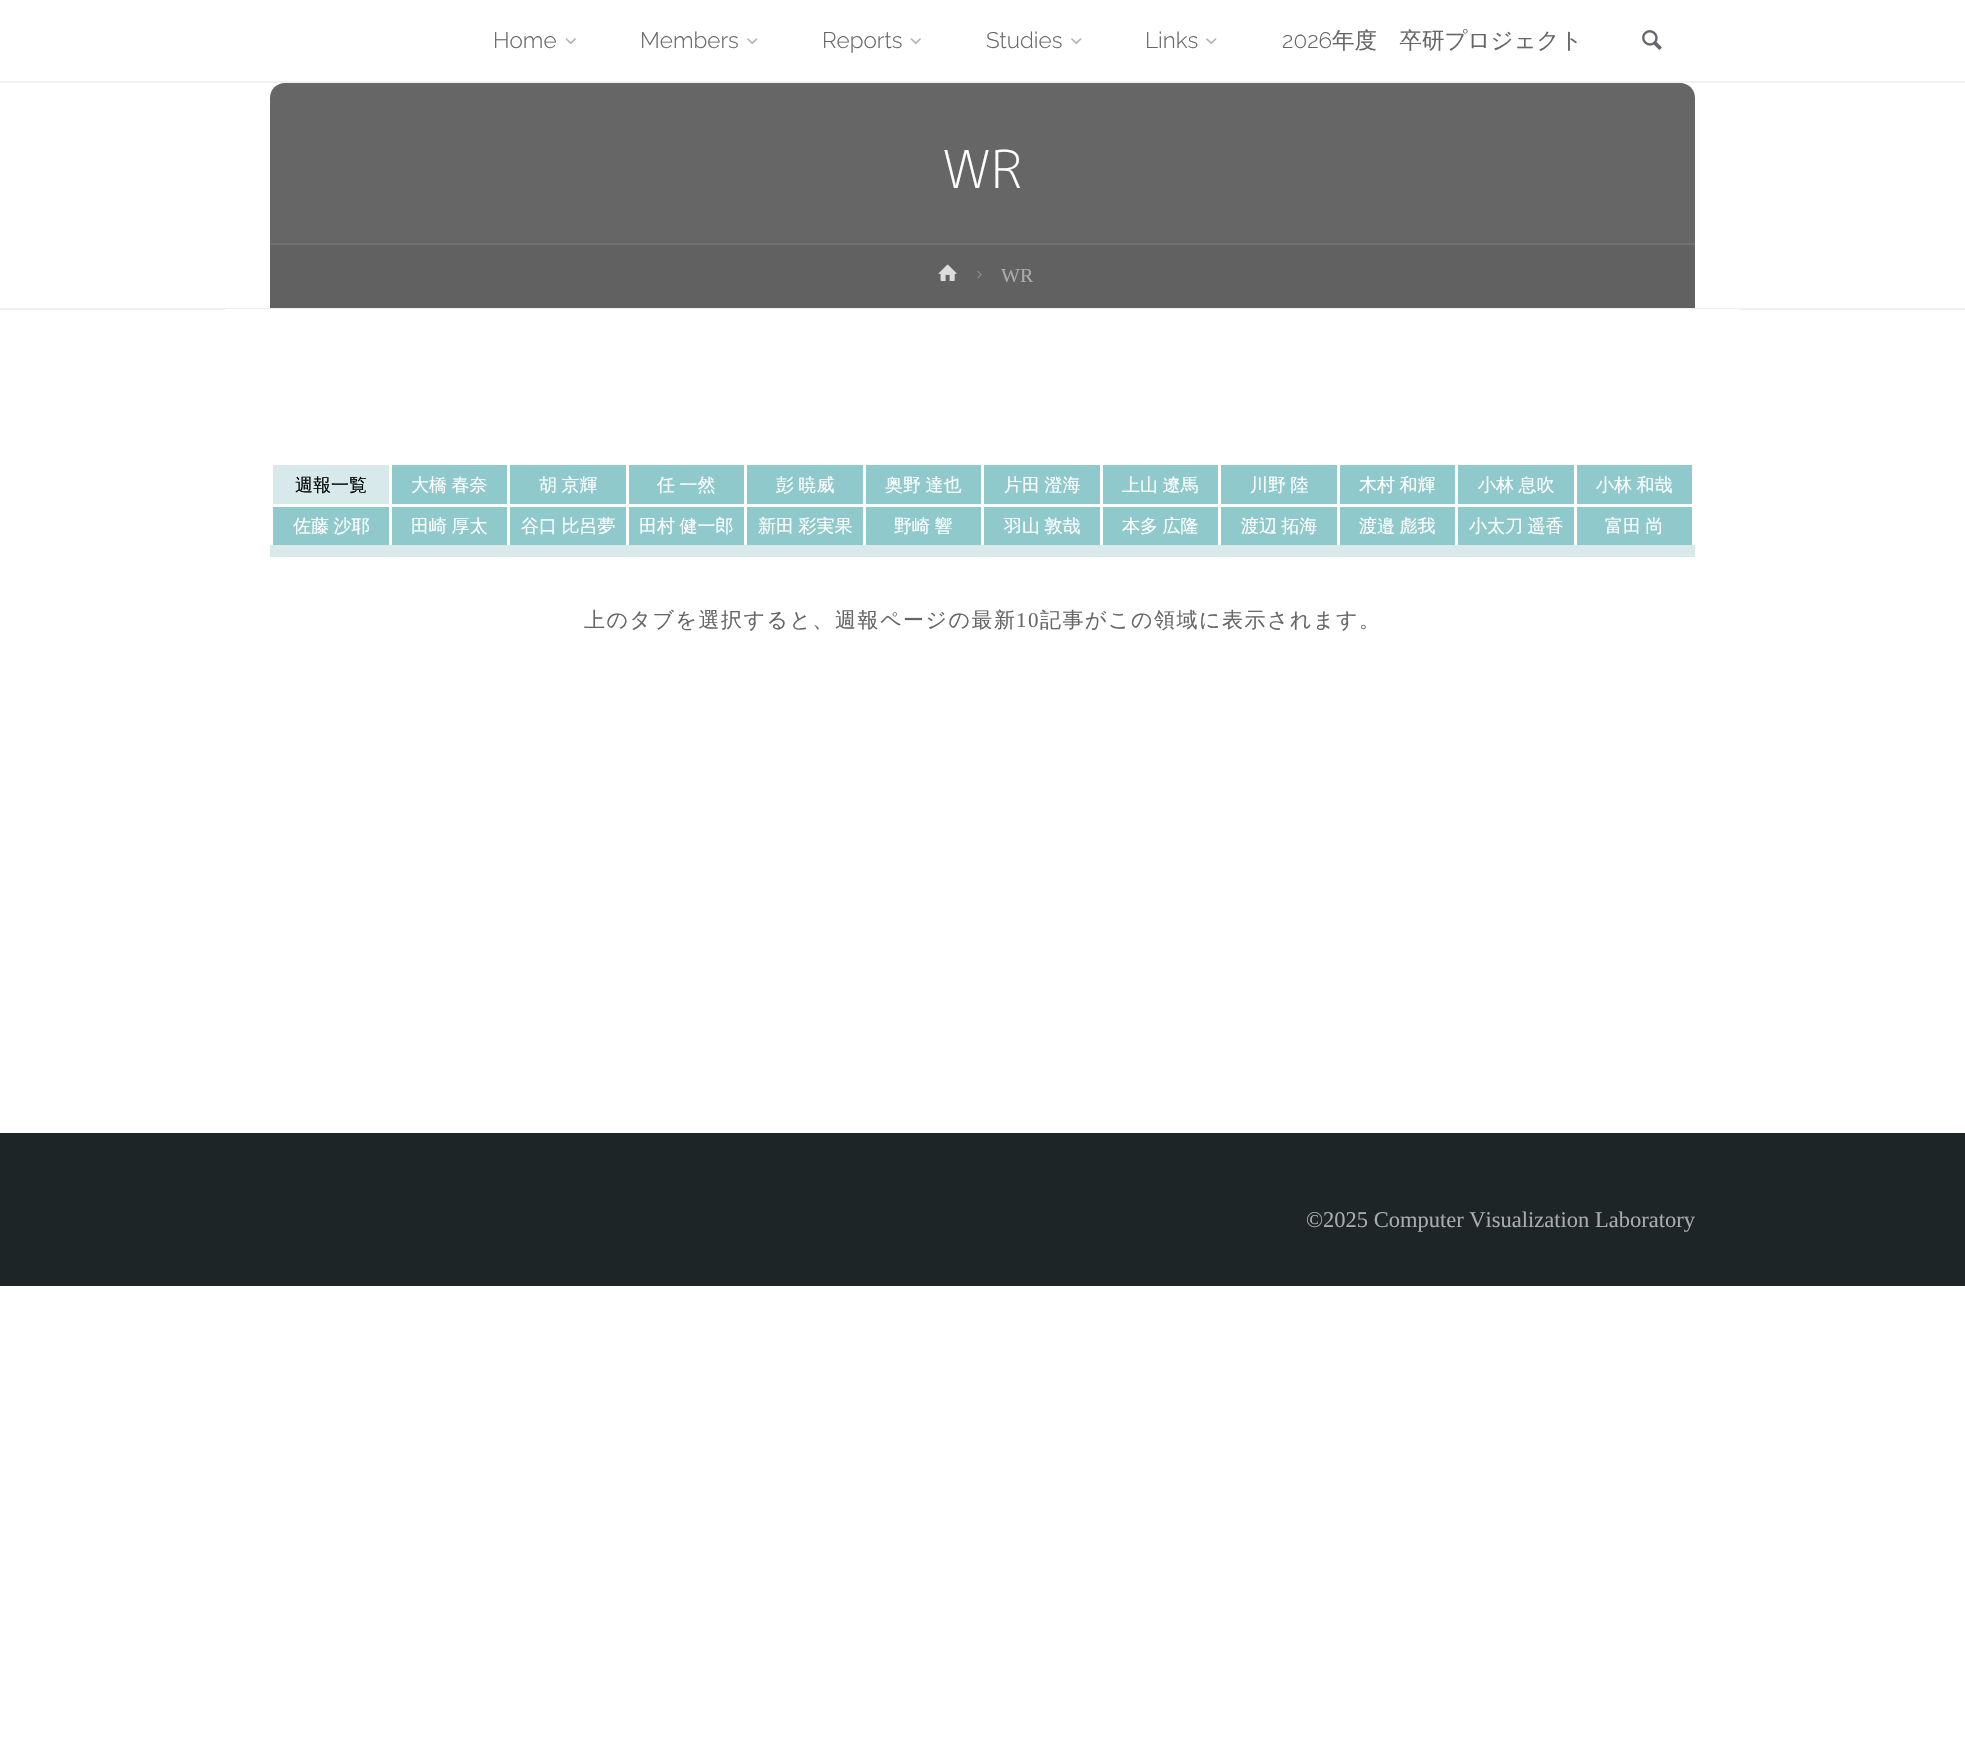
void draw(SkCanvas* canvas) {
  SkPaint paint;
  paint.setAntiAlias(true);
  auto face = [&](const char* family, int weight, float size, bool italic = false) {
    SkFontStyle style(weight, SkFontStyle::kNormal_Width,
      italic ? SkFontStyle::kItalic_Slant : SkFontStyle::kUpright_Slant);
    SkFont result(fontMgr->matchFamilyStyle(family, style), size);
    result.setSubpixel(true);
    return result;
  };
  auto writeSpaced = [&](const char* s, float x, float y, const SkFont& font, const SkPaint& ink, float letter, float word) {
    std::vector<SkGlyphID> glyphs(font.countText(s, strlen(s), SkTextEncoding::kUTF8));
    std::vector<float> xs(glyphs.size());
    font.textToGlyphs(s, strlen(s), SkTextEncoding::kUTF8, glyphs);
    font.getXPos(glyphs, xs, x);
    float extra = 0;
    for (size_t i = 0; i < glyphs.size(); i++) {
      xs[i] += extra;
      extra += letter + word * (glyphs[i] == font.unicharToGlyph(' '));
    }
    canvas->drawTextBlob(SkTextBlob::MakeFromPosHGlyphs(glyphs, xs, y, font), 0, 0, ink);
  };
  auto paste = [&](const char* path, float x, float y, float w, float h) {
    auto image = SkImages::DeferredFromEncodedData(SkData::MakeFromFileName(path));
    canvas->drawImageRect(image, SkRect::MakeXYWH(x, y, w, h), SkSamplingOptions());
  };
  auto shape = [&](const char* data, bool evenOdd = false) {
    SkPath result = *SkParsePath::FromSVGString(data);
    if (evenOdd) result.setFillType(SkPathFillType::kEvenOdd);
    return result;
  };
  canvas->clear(0xffffffff);
  paint.setColor(0xffeeeeee);
  canvas->drawRect(SkRect::MakeXYWH(0, 308, 1965, 2), paint);
  paint.setColor(0xfff2f2f2);
  canvas->drawRect(SkRect::MakeXYWH(0, 81, 1965, 2), paint);
  paste("img/1.png", 565, 38, 11, 6);
  paste("img/2.png", 747, 38, 11, 6);
  paste("img/1.png", 910, 38, 11, 6);
  paste("img/2.png", 1071, 38, 11, 6);
  paste("img/2.png", 1206, 38, 11, 6);
  paste("img/3.png", 1642, 30, 20, 20);
  paint.setColor(0xff666666);
  canvas->drawPath(shape("M285 83H1680C1688.5 83 1695 89.5 1695 98V308H270V98C270 89.5 276.5 83 285 83Z"), paint);
  paint.setColor(0xff616161);
  canvas->drawRect(SkRect::MakeXYWH(270, 245, 1425, 63), paint);
  paint.setColor(0xff717171);
  canvas->drawRect(SkRect::MakeXYWH(270, 243, 1425, 2), paint);
  paste("img/4.png", 938, 264, 19, 17);
  paste("img/5.png", 977, 271, 5, 8);
  {
    const struct { float x, y, w, h; SkColor color; } items[] = {
      {225, 309, 1515, 1, 0xffffffff},
      {273, 465, 116, 39, 0xffd7e9ea},
      {392, 465, 115, 39, 0xff90c9cc},
      {510, 465, 116, 39, 0xff90c9cc},
      {629, 465, 115, 39, 0xff90c9cc},
      {747, 465, 116, 39, 0xff90c9cc},
      {866, 465, 115, 39, 0xff90c9cc},
      {984, 465, 116, 39, 0xff90c9cc},
      {1103, 465, 115, 39, 0xff90c9cc},
      {1221, 465, 116, 39, 0xff90c9cc},
      {1340, 465, 115, 39, 0xff90c9cc},
      {1458, 465, 116, 39, 0xff90c9cc},
      {1577, 465, 115, 39, 0xff90c9cc},
      {273, 507, 116, 38, 0xff90c9cc},
      {392, 507, 115, 38, 0xff90c9cc},
      {510, 507, 116, 38, 0xff90c9cc},
      {629, 507, 115, 38, 0xff90c9cc},
      {747, 507, 116, 38, 0xff90c9cc},
      {866, 507, 115, 38, 0xff90c9cc},
      {984, 507, 116, 38, 0xff90c9cc},
      {1103, 507, 115, 38, 0xff90c9cc},
      {1221, 507, 116, 38, 0xff90c9cc},
      {1340, 507, 115, 38, 0xff90c9cc},
      {1458, 507, 116, 38, 0xff90c9cc},
      {1577, 507, 115, 38, 0xff90c9cc},
      {270, 545, 1425, 12, 0xffd7e9ea},
      {0, 1133, 1965, 153, 0xff1d2527},
    };
    for (auto [x, y, w, h, color] : items) {
      paint.setColor(color);
      canvas->drawRect(SkRect::MakeXYWH(x, y, w, h), paint);
    }
  }
  auto f0 = face("Raleway", 300, 22.5f);
  paint.setColor(0xff666666);
  {
    const struct { const char* s; float x, y; } items[] = {
      {"Home", 493, 48},
      {"Members", 640, 48},
      {"Reports", 822, 48},
      {"Studies", 986, 48},
      {"Links", 1145, 48},
      {"2026", 1282, 48},
    };
    for (auto [s, x, y] : items) {
      canvas->drawString(s, x, y, f0, paint);
    }
  }
  auto f1 = face("WenQuanYi Zen Hei", 500, 22.5f);
  canvas->drawString("年度　卒研プロジェクト", 1332, 48, f1, paint);
  auto f2 = face("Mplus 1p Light", 300, 52);
  paint.setColor(0xffffffff);
  canvas->drawString("WR", 942, 188, f2, paint);
  auto f3 = face("Liberation Serif", 400, 20);
  paint.setColor(0xffababab);
  canvas->drawString("WR", 1001, 282, f3, paint);
  auto f4 = face("WenQuanYi Zen Hei", 500, 18);
  paint.setColor(0xff000000);
  canvas->drawString("週報一覧", 295, 491, f4, paint);
  paint.setColor(0xffffffff);
  {
    const struct { const char* s; float x, y; } items[] = {
      {"大橋 春奈", 411, 491},
      {"胡 京輝", 539, 491},
      {"任 一然", 657, 491},
      {"彭 暁威", 776, 491},
      {"奥野 達也", 885, 491},
      {"片田 澄海", 1004, 491},
      {"上山 遼馬", 1122, 491},
      {"川野 陸", 1250, 491},
      {"木村 和輝", 1359, 491},
      {"小林 息吹", 1478, 491},
      {"小林 和哉", 1596, 491},
      {"佐藤 沙耶", 293, 532},
      {"田崎 厚太", 411, 532},
      {"谷口 比呂夢", 521, 532},
      {"田村 健一郎", 639, 532},
      {"新田 彩実果", 758, 532},
      {"野崎 響", 894, 532},
      {"羽山 敦哉", 1004, 532},
      {"本多 広隆", 1122, 532},
      {"渡辺 拓海", 1241, 532},
      {"渡邉 彪我", 1359, 532},
      {"小太刀 遥香", 1469, 532},
      {"富田 尚", 1605, 532},
    };
    for (auto [s, x, y] : items) {
      writeSpaced(s, x, y, f4, paint, 0, -1);
    }
  }
  auto f5 = face("WenQuanYi Zen Hei", 500, 21);
  paint.setColor(0xff666666);
  writeSpaced("上のタブを選択すると、週報ページの最新", 584, 627, f5, paint, 1.5f, 0);
  auto f6 = face("Liberation Serif", 400, 21);
  writeSpaced("10", 1016, 627, f6, paint, 1.5f, 0);
  writeSpaced("記事がこの領域に表示されます。", 1040, 627, f5, paint, 1.5f, 0);
  auto f7 = face("Liberation Serif", 400, 22.5f);
  paint.setColor(0xffababab);
  canvas->drawString("©2025 Computer Visualization Laboratory", 1306, 1227, f7, paint);
}
